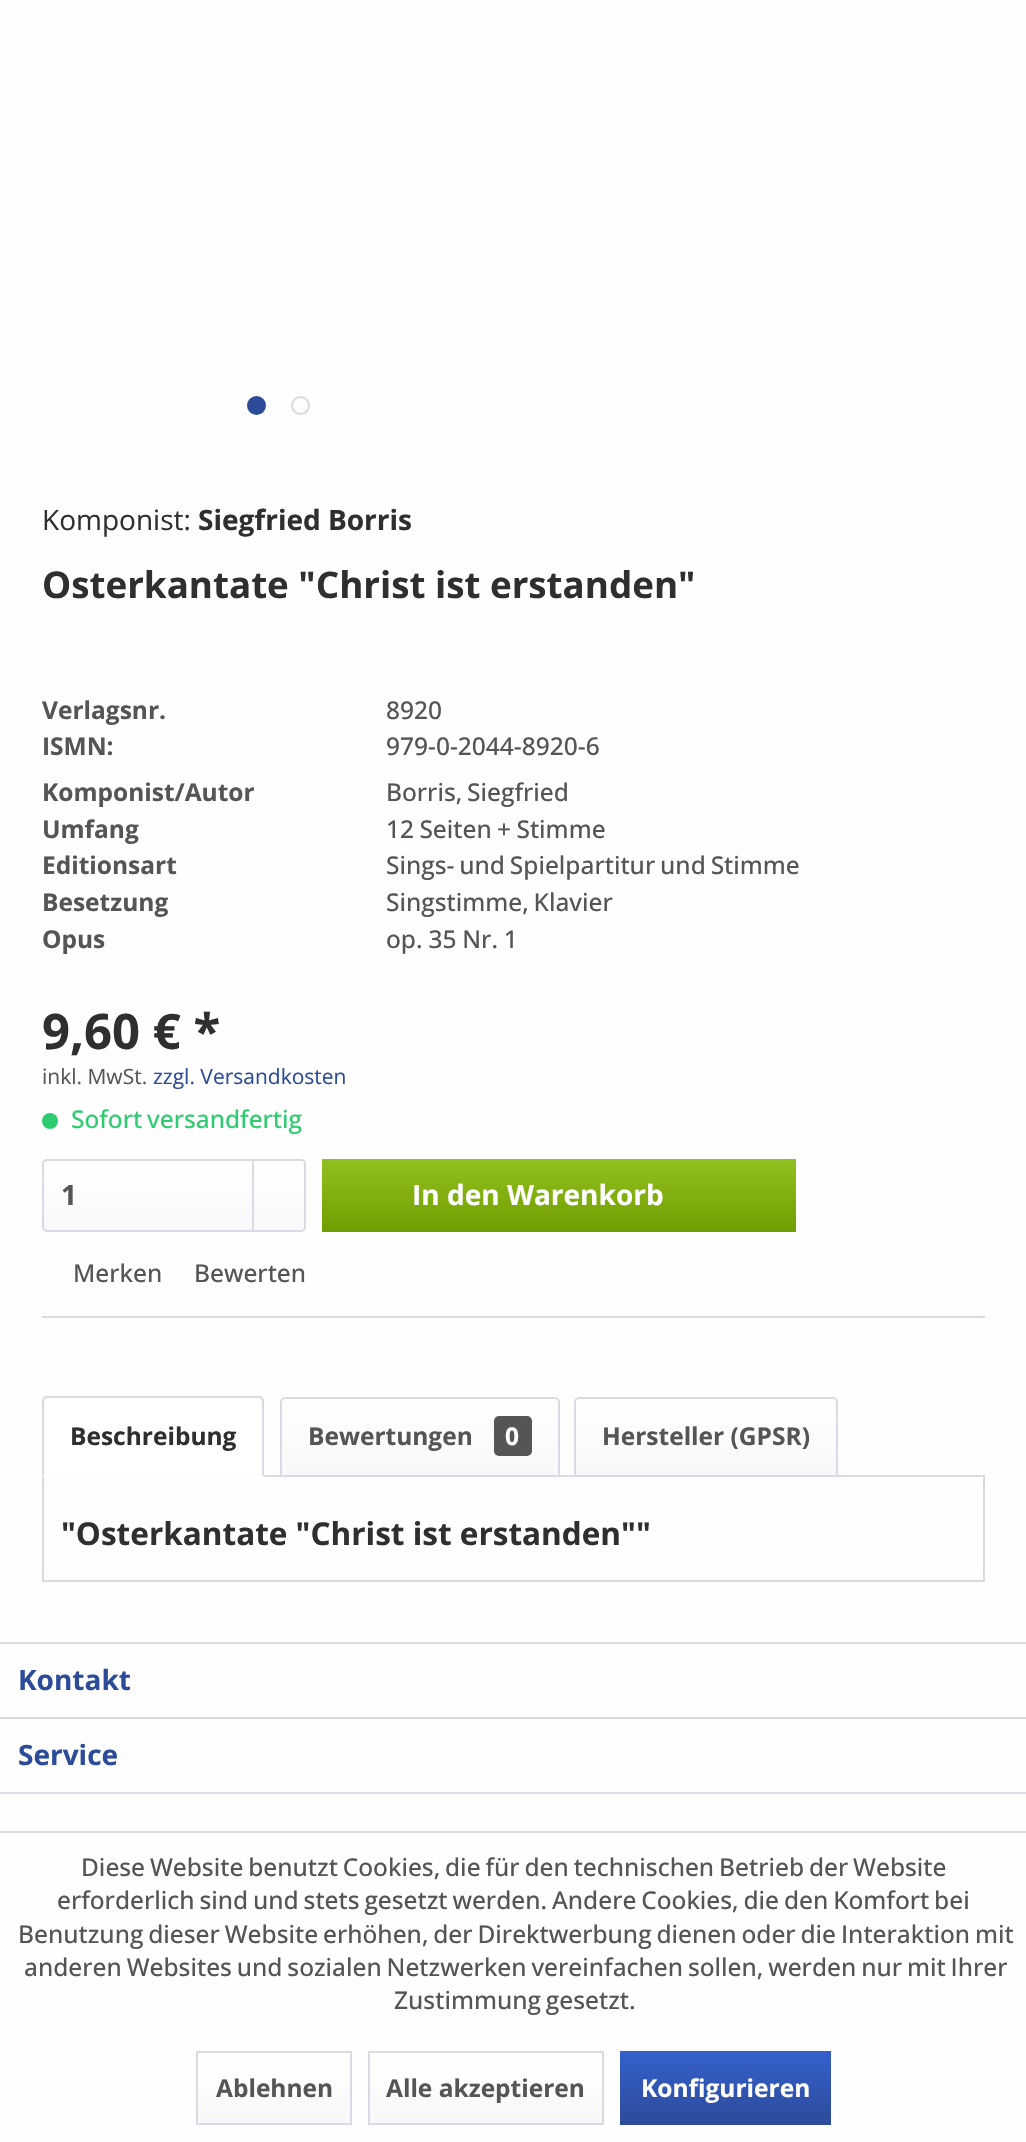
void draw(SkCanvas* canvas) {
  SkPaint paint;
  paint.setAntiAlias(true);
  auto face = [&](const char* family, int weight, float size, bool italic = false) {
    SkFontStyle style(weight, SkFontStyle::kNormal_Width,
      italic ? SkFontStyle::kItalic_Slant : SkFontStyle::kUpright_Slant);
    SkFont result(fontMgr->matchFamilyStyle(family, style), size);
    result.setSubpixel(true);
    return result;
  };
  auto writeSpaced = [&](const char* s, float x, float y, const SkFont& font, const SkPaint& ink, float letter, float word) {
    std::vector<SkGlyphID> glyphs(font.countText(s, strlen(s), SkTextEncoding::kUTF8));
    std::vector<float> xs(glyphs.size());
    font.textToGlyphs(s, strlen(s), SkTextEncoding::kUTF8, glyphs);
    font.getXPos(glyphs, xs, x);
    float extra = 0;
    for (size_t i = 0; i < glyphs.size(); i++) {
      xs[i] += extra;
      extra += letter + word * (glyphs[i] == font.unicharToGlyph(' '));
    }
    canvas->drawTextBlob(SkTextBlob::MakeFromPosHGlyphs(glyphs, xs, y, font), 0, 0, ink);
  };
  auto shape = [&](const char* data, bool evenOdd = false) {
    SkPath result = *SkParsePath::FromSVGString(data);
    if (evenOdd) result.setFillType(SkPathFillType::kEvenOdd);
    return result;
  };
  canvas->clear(0xfffefefe);
  paint.setColor(0xff2c4b99);
  canvas->drawCircle(256.5f, 405.5f, 8.5f, paint);
  paint.setStroke(true);
  paint.setStrokeWidth(2);
  canvas->drawCircle(256.5f, 405.5f, 8.5f, paint);
  paint.setColor(0xffdadae5);
  canvas->drawCircle(300.5f, 405.5f, 8.5f, paint);
  paint.setStroke(false);
  paint.setColor(0xff2ecc71);
  canvas->drawCircle(50, 1121, 8, paint);
  {
    const SkColor colors[] = {0xffffffff, 0xfff8f8fa};
    const float stops[] = {0, 1};
    const SkPoint ends[] = {{174, 1160}, {174, 1230}};
    paint.setShader(SkGradientShader::MakeLinear(ends, colors, stops, 2, SkTileMode::kClamp));
    paint.setAlpha(255);
  }
  canvas->drawRoundRect(SkRect::MakeXYWH(44, 1160, 261, 70), 4, 4, paint);
  paint.setStroke(true);
  paint.setShader(nullptr);
  paint.setColor(0xffdadae5);
  canvas->drawRoundRect(SkRect::MakeXYWH(43, 1160, 262, 71), 4, 4, paint);
  paint.setStroke(false);
  canvas->drawRect(SkRect::MakeXYWH(252, 1160, 2, 70), paint);
  {
    const SkColor colors[] = {0xff92c020, 0xff709e00};
    const float stops[] = {0, 1};
    const SkPoint ends[] = {{559, 1159}, {559, 1232}};
    paint.setShader(SkGradientShader::MakeLinear(ends, colors, stops, 2, SkTileMode::kClamp));
    paint.setAlpha(255);
  }
  canvas->drawRect(SkRect::MakeXYWH(322, 1159, 474, 73), paint);
  paint.setShader(nullptr);
  paint.setColor(0xffdadae5);
  canvas->drawRect(SkRect::MakeXYWH(42, 1316, 943, 2), paint);
  paint.setStroke(true);
  canvas->drawRect(SkRect::MakeXYWH(43, 1476, 941, 105), paint);
  paint.setStroke(false);
  paint.setColor(0xffffffff);
  canvas->drawPath(shape("M47 1397H259C262 1397 264 1399 264 1402V1477H42V1402C42 1399 44 1397 47 1397Z"), paint);
  paint.setColor(0xffdadae5);
  canvas->drawPath(shape("M47 1398L45 1399L43 1398L45 1396H261L263 1398L261 1399C261 1399 260 1398 259 1398Z"), paint);
  canvas->drawPath(shape("M263 1398C264 1399 264 1401 264 1402V1477L262 1475V1402L261 1399Z"), paint);
  paint.setColor(0xffffffff);
  canvas->drawPath(shape("M264 1477L262 1475H44L42 1477Z"), paint);
  paint.setColor(0xffdadae5);
  canvas->drawPath(shape("M42 1477L44 1475V1402L45 1399L43 1398C42 1399 42 1400 42 1402Z"), paint);
  {
    const SkColor colors[] = {0xffffffff, 0xfff8f8fa};
    const float stops[] = {0, 1};
    const SkPoint ends[] = {{420, 1398}, {420, 1475}};
    paint.setShader(SkGradientShader::MakeLinear(ends, colors, stops, 2, SkTileMode::kClamp));
    paint.setAlpha(255);
  }
  canvas->drawPath(shape("M286 1398H554C556 1398 558 1400 558 1402V1475H282V1402C282 1400 284 1398 286 1398Z"), paint);
  paint.setStroke(true);
  paint.setShader(nullptr);
  paint.setColor(0xffdadae5);
  canvas->drawPath(shape("M285 1398H555C557 1398 559 1400 559 1402V1476H281V1402C281 1400 283 1398 285 1398Z"), paint);
  paint.setStroke(false);
  paint.setColor(0xff555555);
  canvas->drawRoundRect(SkRect::MakeXYWH(494, 1416, 38, 40), 5, 5, paint);
  {
    const SkColor colors[] = {0xffffffff, 0xfff8f8fa};
    const float stops[] = {0, 1};
    const SkPoint ends[] = {{706, 1398}, {706, 1475}};
    paint.setShader(SkGradientShader::MakeLinear(ends, colors, stops, 2, SkTileMode::kClamp));
    paint.setAlpha(255);
  }
  canvas->drawPath(shape("M580 1398H833C835 1398 837 1400 837 1402V1475H576V1402C576 1400 578 1398 580 1398Z"), paint);
  paint.setStroke(true);
  paint.setShader(nullptr);
  paint.setColor(0xffdadae5);
  canvas->drawPath(shape("M579 1398H833C835 1398 837 1400 837 1402V1476H575V1402C575 1400 577 1398 579 1398Z"), paint);
  paint.setStroke(false);
  {
    const struct { float x, y, w, h; SkColor color; } items[] = {
      {0, 1642, 1026, 2, 0xffdadae5},
      {0, 1717, 1026, 2, 0xffdadae5},
      {0, 1792, 1026, 2, 0xffdadae5},
      {0, 1831, 1026, 2, 0xffdadae5},
    };
    for (auto [x, y, w, h, color] : items) {
      paint.setColor(color);
      canvas->drawRect(SkRect::MakeXYWH(x, y, w, h), paint);
    }
  }
  {
    const SkColor colors[] = {0xffffffff, 0xfff8f8fa};
    const float stops[] = {0, 1};
    const SkPoint ends[] = {{274, 2053}, {274, 2123}};
    paint.setShader(SkGradientShader::MakeLinear(ends, colors, stops, 2, SkTileMode::kClamp));
    paint.setAlpha(255);
  }
  canvas->drawRect(SkRect::MakeXYWH(198, 2088, 152, 35), paint);
  paint.setStroke(true);
  paint.setShader(nullptr);
  paint.setColor(0xffdadae5);
  canvas->drawRect(SkRect::MakeXYWH(197, 2052, 154, 72), paint);
  paint.setStroke(false);
  {
    const SkColor colors[] = {0xffffffff, 0xfff8f8fa};
    const float stops[] = {0, 1};
    const SkPoint ends[] = {{486, 2053}, {486, 2123}};
    paint.setShader(SkGradientShader::MakeLinear(ends, colors, stops, 2, SkTileMode::kClamp));
    paint.setAlpha(255);
  }
  canvas->drawRect(SkRect::MakeXYWH(370, 2088, 232, 35), paint);
  paint.setStroke(true);
  paint.setShader(nullptr);
  paint.setColor(0xffdadae5);
  canvas->drawRect(SkRect::MakeXYWH(369, 2052, 234, 72), paint);
  paint.setStroke(false);
  {
    const SkColor colors[] = {0xff3560cd, 0xff2c4b99};
    const float stops[] = {0, 1};
    const SkPoint ends[] = {{725, 2051}, {725, 2125}};
    paint.setShader(SkGradientShader::MakeLinear(ends, colors, stops, 2, SkTileMode::kClamp));
    paint.setAlpha(255);
  }
  canvas->drawRect(SkRect::MakeXYWH(620, 2051, 211, 74), paint);
  auto f0 = face("Open Sans", 400, 28);
  paint.setShader(nullptr);
  paint.setColor(0xff2f2f2f);
  canvas->drawString("Komponist:", 42, 530, f0, paint);
  auto f1 = face("Open Sans", 700, 28);
  canvas->drawString("Siegfried Borris", 198, 530, f1, paint);
  auto f2 = face("Open Sans", 700, 36.75f);
  canvas->drawString("Osterkantate \"Christ ist erstanden\"", 42, 598, f2, paint);
  auto f3 = face("Open Sans", 700, 24.5f);
  paint.setColor(0xff555555);
  canvas->drawString("Verlagsnr.", 42, 719, f3, paint);
  auto f4 = face("Open Sans", 500, 24.5f);
  canvas->drawString("8920", 386, 719, f4, paint);
  canvas->drawString("ISMN:", 42, 755, f3, paint);
  canvas->drawString("979-0-2044-8920-6", 386, 755, f4, paint);
  canvas->drawString("Komponist/Autor", 42, 801, f3, paint);
  writeSpaced("Borris, Siegfried", 386, 801, f4, paint, 0, -1.5f);
  canvas->drawString("Umfang", 42, 838, f3, paint);
  writeSpaced("12 Seiten + Stimme", 386, 838, f4, paint, 0, -1);
  canvas->drawString("Editionsart", 42, 874, f3, paint);
  writeSpaced("Sings- und Spielpartitur und Stimme", 386, 874, f4, paint, 0, -1.5f);
  canvas->drawString("Besetzung", 42, 911, f3, paint);
  writeSpaced("Singstimme, Klavier", 386, 911, f4, paint, 0, -1.5f);
  canvas->drawString("Opus", 42, 948, f3, paint);
  writeSpaced("op. 35 Nr. 1", 386, 948, f4, paint, 0, -0.5f);
  auto f5 = face("Open Sans", 700, 49);
  paint.setColor(0xff2f2f2f);
  canvas->drawString("9,60 € *", 42, 1049, f5, paint);
  auto f6 = face("Open Sans", 400, 21);
  paint.setColor(0xff555555);
  canvas->drawString("inkl. MwSt.", 42, 1084, f6, paint);
  paint.setColor(0xff2c4b99);
  canvas->drawString("zzgl. Versandkosten", 153, 1084, f6, paint);
  paint.setColor(0xff2ecc71);
  writeSpaced("Sofort versandfertig", 71, 1128, f4, paint, 0, -1.5f);
  paint.setColor(0xff555555);
  canvas->drawString("1", 61, 1205, f1, paint);
  paint.setColor(0xffffffff);
  canvas->drawString("In den Warenkorb", 412, 1205, f1, paint);
  paint.setColor(0xff555555);
  canvas->drawString("Merken", 73, 1282, f4, paint);
  canvas->drawString("Bewerten", 194, 1282, f4, paint);
  paint.setColor(0xff2f2f2f);
  canvas->drawString("Beschreibung", 70, 1445, f3, paint);
  paint.setColor(0xff555555);
  canvas->drawString("Bewertungen", 308, 1445, f3, paint);
  paint.setColor(0xffffffff);
  canvas->drawString("0", 505, 1445, f3, paint);
  paint.setColor(0xff555555);
  canvas->drawString("Hersteller (GPSR)", 602, 1445, f3, paint);
  auto f7 = face("Open Sans", 700, 31.5f);
  paint.setColor(0xff2f2f2f);
  canvas->drawString("\"Osterkantate \"Christ ist erstanden\"\"", 61, 1545, f7, paint);
  paint.setColor(0xff2c4b99);
  canvas->drawString("Kontakt", 18, 1690, f1, paint);
  canvas->drawString("Service", 18, 1765, f1, paint);
  paint.setColor(0xff555555);
  {
    const struct { const char* s; float x, y; } items[] = {
      {"Diese Website benutzt Cookies, die für den technischen Betrieb der Website", 81, 1876},
      {"erforderlich sind und stets gesetzt werden. Andere Cookies, die den Komfort bei", 57, 1909},
      {"Benutzung dieser Website erhöhen, der Direktwerbung dienen oder die Interaktion mit", 18, 1943},
      {"anderen Websites und sozialen Netzwerken vereinfachen sollen, werden nur mit Ihrer", 24, 1976},
      {"Zustimmung gesetzt.", 394, 2009},
    };
    for (auto [s, x, y] : items) {
      writeSpaced(s, x, y, f4, paint, 0, -1.5f);
    }
  }
  canvas->drawString("Ablehnen", 216, 2097, f3, paint);
  canvas->drawString("Alle akzeptieren", 386, 2097, f3, paint);
  paint.setColor(0xffffffff);
  canvas->drawString("Konfigurieren", 641, 2097, f3, paint);
}
